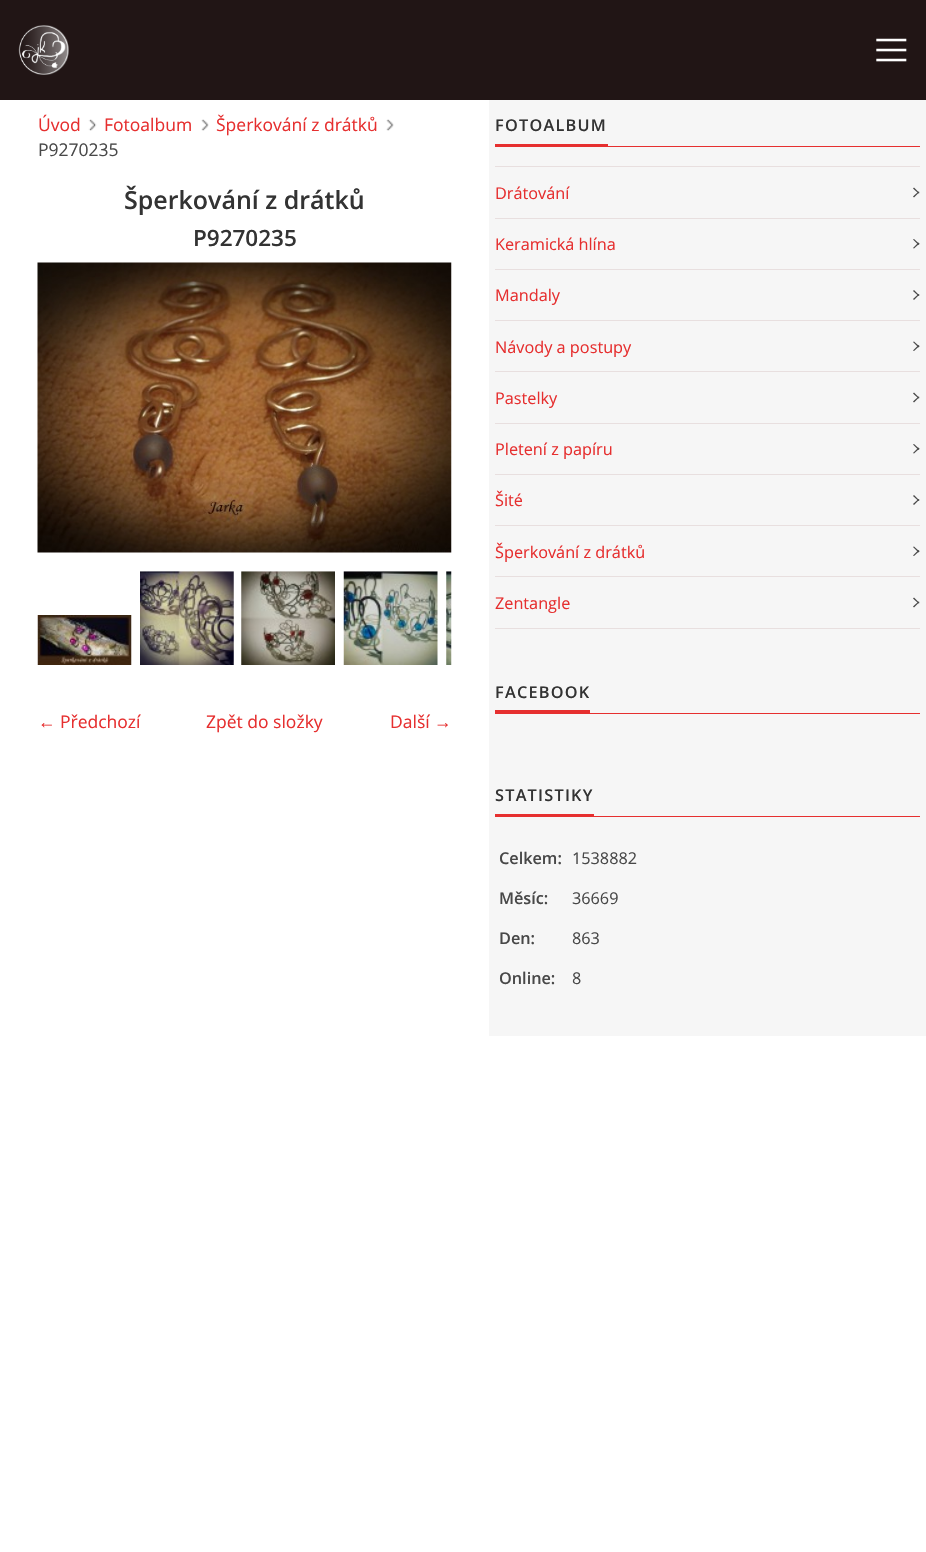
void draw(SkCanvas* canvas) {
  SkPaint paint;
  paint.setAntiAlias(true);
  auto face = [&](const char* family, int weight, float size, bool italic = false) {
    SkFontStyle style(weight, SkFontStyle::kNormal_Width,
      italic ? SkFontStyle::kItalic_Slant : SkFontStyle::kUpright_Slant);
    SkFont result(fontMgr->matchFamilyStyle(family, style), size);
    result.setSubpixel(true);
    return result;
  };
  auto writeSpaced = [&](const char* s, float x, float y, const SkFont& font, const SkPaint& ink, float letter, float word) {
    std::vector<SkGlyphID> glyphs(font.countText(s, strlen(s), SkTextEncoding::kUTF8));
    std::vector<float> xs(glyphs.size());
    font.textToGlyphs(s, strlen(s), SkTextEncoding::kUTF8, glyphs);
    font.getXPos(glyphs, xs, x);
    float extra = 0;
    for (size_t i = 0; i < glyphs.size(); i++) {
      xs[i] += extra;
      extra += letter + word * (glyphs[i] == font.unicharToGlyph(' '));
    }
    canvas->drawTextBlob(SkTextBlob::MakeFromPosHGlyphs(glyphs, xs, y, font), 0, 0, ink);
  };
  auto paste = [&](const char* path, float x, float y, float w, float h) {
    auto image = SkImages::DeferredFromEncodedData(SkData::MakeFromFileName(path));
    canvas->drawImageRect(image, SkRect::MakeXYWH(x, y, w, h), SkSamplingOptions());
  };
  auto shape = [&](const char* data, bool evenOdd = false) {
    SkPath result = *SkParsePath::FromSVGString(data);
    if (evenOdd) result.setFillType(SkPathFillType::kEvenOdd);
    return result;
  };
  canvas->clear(0xffffffff);
  paint.setColor(0xff211515);
  canvas->drawRect(SkRect::MakeXYWH(0, 0, 926, 100), paint);
  paste("img/1.png", 18, 25, 51, 50);
  paste("img/2.png", 876, 38, 31, 24);
  paste("img/3.png", 88, 119, 9, 12);
  paste("img/4.png", 201, 119, 8, 12);
  paste("img/4.png", 386, 119, 8, 12);
  paste("img/5.png", 37, 262, 415, 291);
  paste("img/6.png", 37, 615, 95, 50);
  paste("img/7.png", 140, 571, 94, 94);
  paste("img/8.png", 241, 571, 94, 94);
  paste("img/9.png", 343, 571, 95, 94);
  paste("img/10.png", 446, 571, 6, 94);
  {
    const struct { float x, y, w, h; SkColor color; } items[] = {
      {489, 100, 437, 936, 0xfff6f6f6},
      {495, 144, 113, 2, 0xffe62f2f},
      {495, 146, 425, 1, 0xffe62f2f},
      {495, 166, 425, 1, 0xffe8dfdf},
      {495, 218, 425, 1, 0xffe8dfdf},
    };
    for (auto [x, y, w, h, color] : items) {
      paint.setColor(color);
      canvas->drawRect(SkRect::MakeXYWH(x, y, w, h), paint);
    }
  }
  paint.setColor(0xff484848);
  canvas->drawPath(shape("M914 187.5L919.5 193L918.5 193.5L913 188.5Z"), paint);
  canvas->drawPath(shape("M913 196.5L918.5 191.5L919.5 192L914 197.5Z"), paint);
  paint.setColor(0xffe8dfdf);
  canvas->drawRect(SkRect::MakeXYWH(495, 269, 425, 1), paint);
  paint.setColor(0xff484848);
  canvas->drawPath(shape("M914 239L919.5 244L918.5 245L913 239.5Z"), paint);
  canvas->drawPath(shape("M913 248L918.5 242.5L919.5 243.5L914 248.5Z"), paint);
  paint.setColor(0xffe8dfdf);
  canvas->drawRect(SkRect::MakeXYWH(495, 320, 425, 1), paint);
  paint.setColor(0xff484848);
  canvas->drawPath(shape("M914 290L919.5 295.5L918.5 296L913 291Z"), paint);
  canvas->drawPath(shape("M913 299L918.5 294L919.5 294.5L914 300Z"), paint);
  paint.setColor(0xffe8dfdf);
  canvas->drawRect(SkRect::MakeXYWH(495, 371, 425, 1), paint);
  paint.setColor(0xff484848);
  canvas->drawPath(shape("M914 341.5L919.5 346.5L918.5 347.5L913 342Z"), paint);
  canvas->drawPath(shape("M913 350.5L918.5 345L919.5 346L914 351Z"), paint);
  paint.setColor(0xffe8dfdf);
  canvas->drawRect(SkRect::MakeXYWH(495, 423, 425, 1), paint);
  paint.setColor(0xff484848);
  canvas->drawPath(shape("M914 392.5L919.5 398L918.5 398.5L913 393.5Z"), paint);
  canvas->drawPath(shape("M913 401.5L918.5 396.5L919.5 397L914 402.5Z"), paint);
  paint.setColor(0xffe8dfdf);
  canvas->drawRect(SkRect::MakeXYWH(495, 474, 425, 1), paint);
  paint.setColor(0xff484848);
  canvas->drawPath(shape("M914 444L919.5 449L918.5 450L913 444.5Z"), paint);
  canvas->drawPath(shape("M913 453L918.5 447.5L919.5 448.5L914 453.5Z"), paint);
  paint.setColor(0xffe8dfdf);
  canvas->drawRect(SkRect::MakeXYWH(495, 525, 425, 1), paint);
  paint.setColor(0xff484848);
  canvas->drawPath(shape("M914 495L919.5 500.5L918.5 501L913 496Z"), paint);
  canvas->drawPath(shape("M913 504L918.5 499L919.5 499.5L914 505Z"), paint);
  paint.setColor(0xffe8dfdf);
  canvas->drawRect(SkRect::MakeXYWH(495, 576, 425, 1), paint);
  paint.setColor(0xff484848);
  canvas->drawPath(shape("M914 546.5L919.5 551.5L918.5 552.5L913 547Z"), paint);
  canvas->drawPath(shape("M913 555.5L918.5 550L919.5 551L914 556Z"), paint);
  paint.setColor(0xffe8dfdf);
  canvas->drawRect(SkRect::MakeXYWH(495, 628, 425, 1), paint);
  paint.setColor(0xff484848);
  canvas->drawPath(shape("M914 597.5L919.5 603L918.5 603.5L913 598.5Z"), paint);
  canvas->drawPath(shape("M913 606.5L918.5 601.5L919.5 602L914 607.5Z"), paint);
  {
    const struct { float x, y, w, h; SkColor color; } items[] = {
      {495, 710, 95, 3, 0xffe62f2f},
      {495, 713, 425, 1, 0xffe62f2f},
      {495, 814, 99, 2, 0xffe62f2f},
      {495, 816, 425, 1, 0xffe62f2f},
    };
    for (auto [x, y, w, h, color] : items) {
      paint.setColor(color);
      canvas->drawRect(SkRect::MakeXYWH(x, y, w, h), paint);
    }
  }
  auto f0 = face("Open Sans", 400, 17.5f);
  {
    const struct { const char* s; float x, y; } items[] = {
      {"Úvod", 38, 131},
      {"Fotoalbum", 104, 131},
      {"Šperkování z drátků", 216, 131},
    };
    for (auto [s, x, y] : items) {
      canvas->drawString(s, x, y, f0, paint);
    }
  }
  paint.setColor(0xff484848);
  canvas->drawString("P9270235", 38, 156, f0, paint);
  auto f1 = face("Open Sans", 600, 25);
  paint.setColor(0xff333333);
  canvas->drawString("Šperkování z drátků", 124, 209, f1, paint);
  auto f2 = face("Open Sans", 600, 22.5f);
  canvas->drawString("P9270235", 193, 246, f2, paint);
  auto f3 = face("Liberation Serif", 400, 17.5f);
  paint.setColor(0xffe62f2f);
  canvas->drawString("←", 38, 728, f3, paint);
  {
    const struct { const char* s; float x, y; } items[] = {
      {"Předchozí", 60, 728},
      {"Zpět do složky", 206, 728},
      {"Další", 390, 728},
    };
    for (auto [s, x, y] : items) {
      canvas->drawString(s, x, y, f0, paint);
    }
  }
  canvas->drawString("→", 434, 728, f3, paint);
  auto f4 = face("Open Sans", 600, 16.25f);
  paint.setColor(0xff333333);
  writeSpaced("FOTOALBUM", 495, 131, f4, paint, 1.25f, 0);
  auto f5 = face("Open Sans", 400, 16.25f);
  paint.setColor(0xffe62f2f);
  {
    const struct { const char* s; float x, y; } items[] = {
      {"Drátování", 495, 199},
      {"Keramická hlína", 495, 250},
      {"Mandaly", 495, 301},
      {"Návody a postupy", 495, 353},
      {"Pastelky", 495, 404},
      {"Pletení z papíru", 495, 455},
      {"Šité", 495, 506},
      {"Šperkování z drátků", 495, 558},
      {"Zentangle", 495, 609},
    };
    for (auto [s, x, y] : items) {
      canvas->drawString(s, x, y, f5, paint);
    }
  }
  paint.setColor(0xff333333);
  writeSpaced("FACEBOOK", 495, 698, f4, paint, 1.25f, 0);
  writeSpaced("STATISTIKY", 495, 801, f4, paint, 1.25f, 0);
  paint.setColor(0xff484848);
  canvas->drawString("Celkem:", 499, 864, f4, paint);
  canvas->drawString("1538882", 572, 864, f5, paint);
  canvas->drawString("Měsíc:", 499, 904, f4, paint);
  canvas->drawString("36669", 572, 904, f5, paint);
  canvas->drawString("Den:", 499, 944, f4, paint);
  canvas->drawString("863", 572, 944, f5, paint);
  canvas->drawString("Online:", 499, 984, f4, paint);
  canvas->drawString("8", 572, 984, f5, paint);
}
